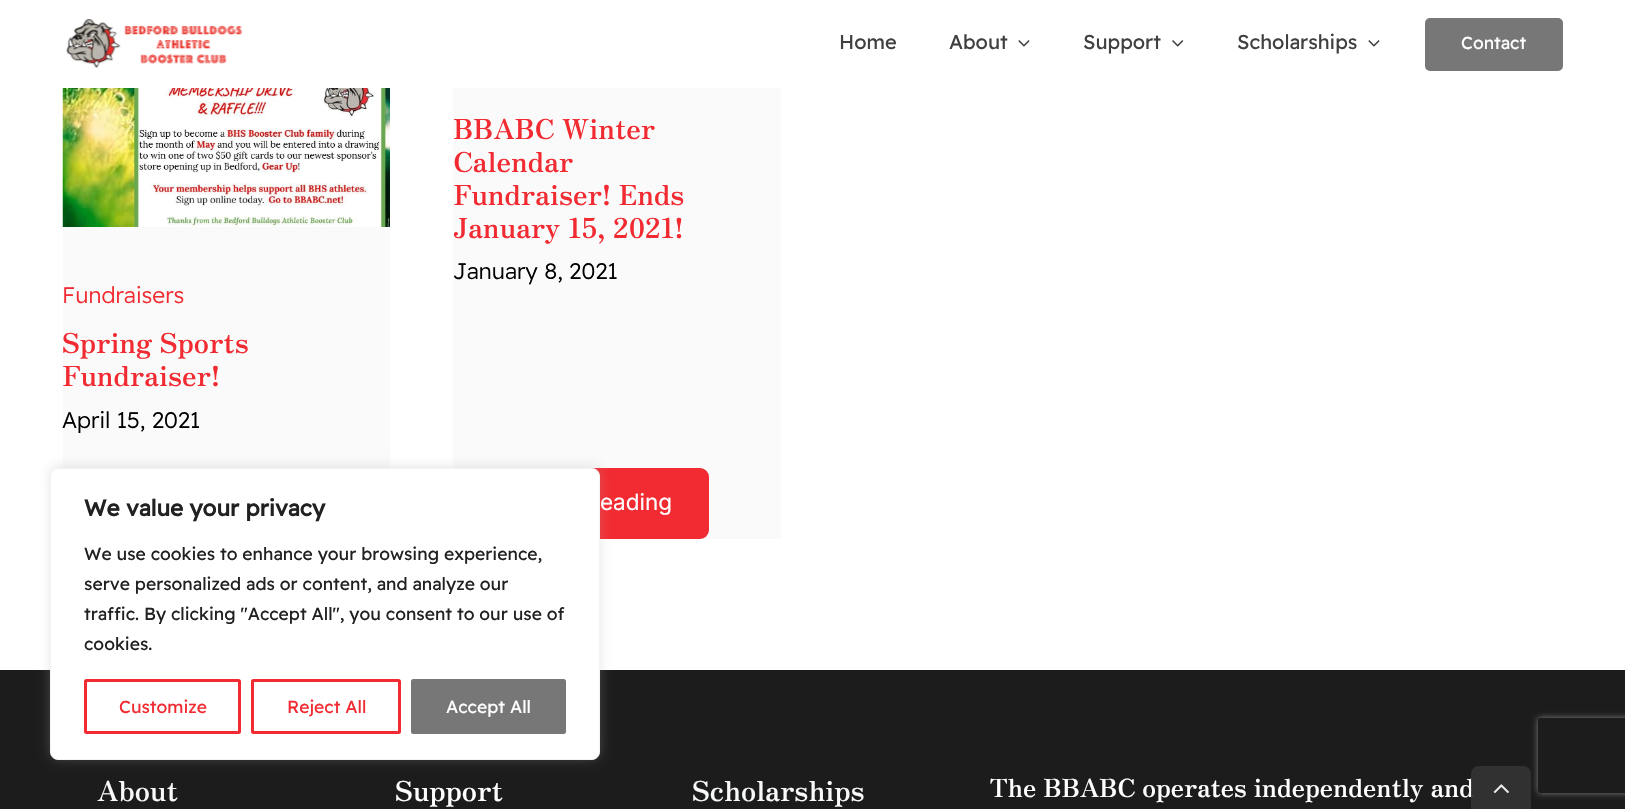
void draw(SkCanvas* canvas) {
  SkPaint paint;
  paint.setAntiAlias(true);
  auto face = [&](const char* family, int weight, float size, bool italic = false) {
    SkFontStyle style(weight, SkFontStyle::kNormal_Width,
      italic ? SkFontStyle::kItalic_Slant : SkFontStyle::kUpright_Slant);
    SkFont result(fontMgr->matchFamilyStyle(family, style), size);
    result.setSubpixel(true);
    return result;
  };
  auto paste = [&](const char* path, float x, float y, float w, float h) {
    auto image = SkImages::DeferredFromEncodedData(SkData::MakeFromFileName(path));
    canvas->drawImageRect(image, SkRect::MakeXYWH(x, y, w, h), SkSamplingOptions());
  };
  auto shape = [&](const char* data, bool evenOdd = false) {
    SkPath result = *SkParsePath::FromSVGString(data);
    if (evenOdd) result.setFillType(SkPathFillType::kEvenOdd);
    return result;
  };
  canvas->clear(0xffffffff);
  paste("img/1.png", 66, 19, 177, 50);
  paste("img/2.png", 1018, 40, 12, 7);
  paste("img/3.png", 1172, 40, 12, 7);
  paste("img/2.png", 1368, 40, 12, 7);
  paint.setColor(0xff777777);
  canvas->drawRoundRect(SkRect::MakeXYWH(1425, 18, 138, 53), 5, 5, paint);
  paint.setColor(0xfffafafa);
  canvas->drawRect(SkRect::MakeXYWH(63, 227, 327, 241), paint);
  paste("img/4.png", 62, 88, 328, 139);
  canvas->drawRect(SkRect::MakeXYWH(453, 88, 328, 451), paint);
  paint.setColor(0xfff12b31);
  canvas->drawRoundRect(SkRect::MakeXYWH(453, 468, 256, 71), 9, 9, paint);
  paint.setColor(0xff1c1c1c);
  canvas->drawRect(SkRect::MakeXYWH(0, 670, 1625, 139), paint);
  paint.setColor(0x4dacabab);
  paint.setMaskFilter(SkMaskFilter::MakeBlur(kNormal_SkBlurStyle, 6));
  canvas->drawRoundRect(SkRect::MakeXYWH(50, 466, 550, 293), 8, 8, paint);
  paint.setMaskFilter(nullptr);
  paint.setColor(0xffffffff);
  canvas->drawRoundRect(SkRect::MakeXYWH(50.5f, 468.5f, 549, 291), 7.5f, 7.5f, paint);
  paint.setStroke(true);
  paint.setStrokeWidth(1);
  paint.setColor(0xfff4f4f4);
  canvas->drawRoundRect(SkRect::MakeXYWH(50.5f, 468.5f, 549, 291), 7.5f, 7.5f, paint);
  paint.setStrokeWidth(3);
  paint.setColor(0xfff12b31);
  canvas->drawRoundRect(SkRect::MakeXYWH(85.5f, 680.5f, 154, 52), 1, 1, paint);
  canvas->drawRoundRect(SkRect::MakeXYWH(252.5f, 680.5f, 147, 52), 1, 1, paint);
  paint.setStroke(false);
  paint.setColor(0xff777777);
  canvas->drawRoundRect(SkRect::MakeXYWH(412.5f, 680.5f, 152, 52), 1, 1, paint);
  paint.setStroke(true);
  canvas->drawRoundRect(SkRect::MakeXYWH(412.5f, 680.5f, 152, 52), 1, 1, paint);
  canvas->save();
  canvas->clipPath(shape("M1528 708H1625V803H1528ZM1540.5 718H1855.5C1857 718 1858 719 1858 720.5V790.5C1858 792 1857 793 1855.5 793H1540.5C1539 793 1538 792 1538 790.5V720.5C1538 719 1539 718 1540.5 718Z", true), true);
  paint.setStroke(false);
  paint.setColor(0xff808080);
  paint.setMaskFilter(SkMaskFilter::MakeBlur(kNormal_SkBlurStyle, 3));
  canvas->drawRoundRect(SkRect::MakeXYWH(1538, 718, 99, 75), 2.5f, 2.5f, paint);
  paint.setMaskFilter(nullptr);
  canvas->restore();
  auto f0 = face("Readex Pro", 400, 20);
  paint.setColor(0xff404040);
  {
    const struct { const char* s; float x, y; } items[] = {
      {"Home", 839, 49},
      {"About", 949, 49},
      {"Support", 1083, 49},
      {"Scholarships", 1237, 49},
    };
    for (auto [s, x, y] : items) {
      canvas->drawString(s, x, y, f0, paint);
    }
  }
  auto f1 = face("Readex Pro", 400, 17.5f);
  paint.setColor(0xffffffff);
  canvas->drawString("Contact", 1461, 49, f1, paint);
  auto f2 = face("Readex Pro", 300, 22.5f);
  paint.setColor(0xfff12b31);
  canvas->drawString("Fundraisers", 62, 303, f2, paint);
  auto f3 = face("Zen Antique", 400, 27.5f);
  canvas->drawString("Spring Sports", 62, 353, f3, paint);
  canvas->drawString("Fundraiser!", 62, 386, f3, paint);
  paint.setColor(0xff000000);
  canvas->drawString("April 15, 2021", 62, 428, f2, paint);
  paint.setColor(0xfff12b31);
  {
    const struct { const char* s; float x, y; } items[] = {
      {"BBABC Winter", 453, 139},
      {"Calendar", 453, 172},
      {"Fundraiser! Ends", 453, 205},
      {"January 15, 2021!", 453, 238},
    };
    for (auto [s, x, y] : items) {
      canvas->drawString(s, x, y, f3, paint);
    }
  }
  paint.setColor(0xff000000);
  canvas->drawString("January 8, 2021", 453, 279, f2, paint);
  auto f4 = face("Inter", 400, 22.5f);
  paint.setColor(0xffffffff);
  canvas->drawString("eading", 600, 510, f4, paint);
  paint.setColor(0xfff8f9fa);
  canvas->drawString("About", 97, 801, f3, paint);
  paint.setColor(0xffffffff);
  canvas->drawString("Support", 395, 801, f3, paint);
  paint.setColor(0xfff8f9fa);
  canvas->drawString("Scholarships", 692, 801, f3, paint);
  auto f5 = face("Zen Antique", 400, 25);
  paint.setColor(0xffffffff);
  canvas->drawString("The BBABC operates independently and", 990, 797, f5, paint);
  auto f6 = face("Readex Pro", 700, 22.5f);
  paint.setColor(0xff212121);
  canvas->drawString("We value your privacy", 84, 516, f6, paint);
  {
    const struct { const char* s; float x, y; } items[] = {
      {"We use cookies to enhance your browsing experience,", 84, 560},
      {"serve personalized ads or content, and analyze our", 84, 590},
      {"traffic. By clicking \"Accept All\", you consent to our use of", 84, 620},
      {"cookies.", 84, 650},
    };
    for (auto [s, x, y] : items) {
      canvas->drawString(s, x, y, f1, paint);
    }
  }
  paint.setColor(0xfff12b31);
  canvas->drawString("Customize", 119, 713, f1, paint);
  canvas->drawString("Reject All", 287, 713, f1, paint);
  paint.setColor(0xffffffff);
  canvas->drawString("Accept All", 446, 713, f1, paint);
  paint.setColor(0xe6333333);
  canvas->drawPath(shape("M1479 766H1523C1527.5 766 1531 769.5 1531 774V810H1471V774C1471 769.5 1474.5 766 1479 766Z"), paint);
  paste("img/5.png", 1493, 784, 16, 10);
}
